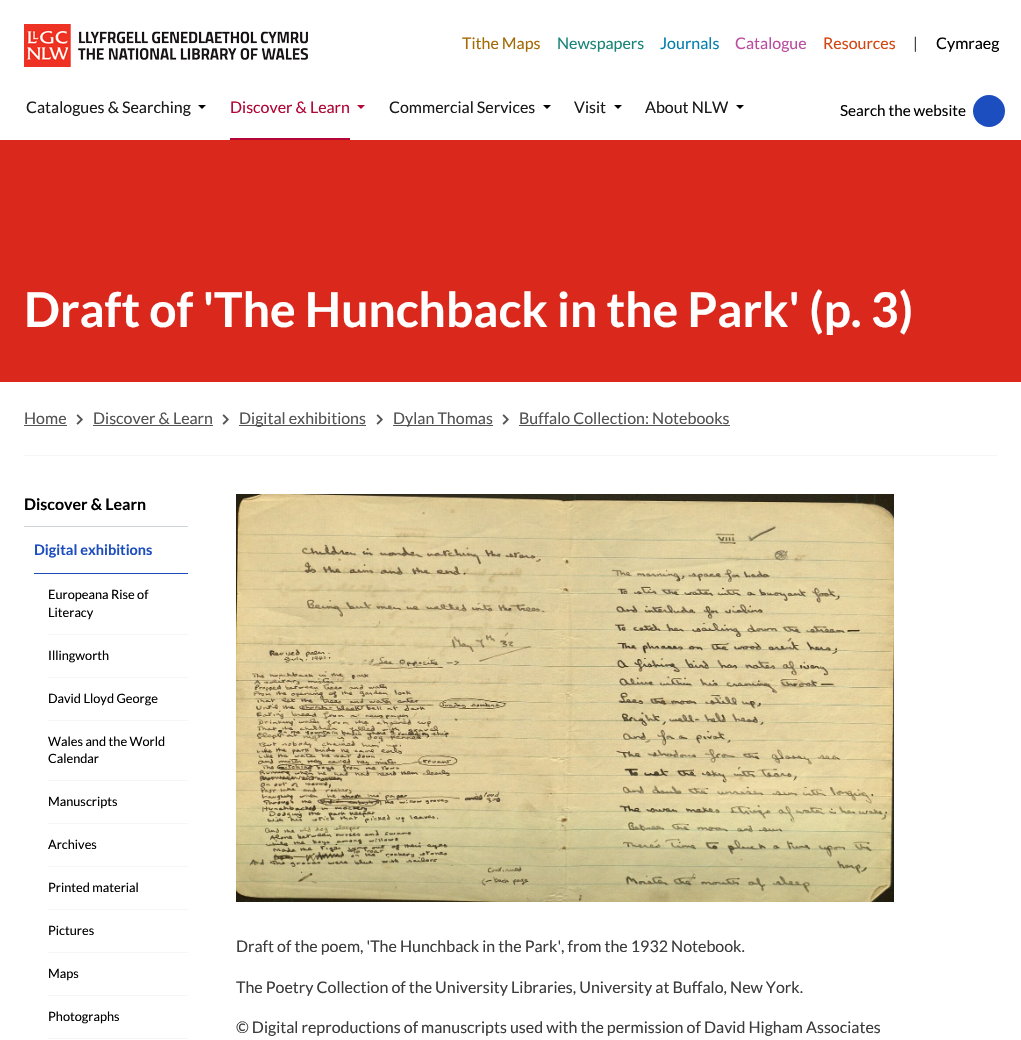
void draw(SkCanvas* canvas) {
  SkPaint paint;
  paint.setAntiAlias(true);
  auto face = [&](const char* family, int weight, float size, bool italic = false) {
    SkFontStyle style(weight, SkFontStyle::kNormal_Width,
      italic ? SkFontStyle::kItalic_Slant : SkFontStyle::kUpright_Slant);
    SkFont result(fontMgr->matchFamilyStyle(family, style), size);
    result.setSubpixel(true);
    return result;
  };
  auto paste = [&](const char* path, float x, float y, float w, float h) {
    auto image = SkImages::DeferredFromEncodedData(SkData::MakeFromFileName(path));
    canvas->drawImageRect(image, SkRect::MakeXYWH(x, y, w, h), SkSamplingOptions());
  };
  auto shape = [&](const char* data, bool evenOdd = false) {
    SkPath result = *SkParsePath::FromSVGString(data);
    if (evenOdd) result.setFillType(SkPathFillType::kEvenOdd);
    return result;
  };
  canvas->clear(0xffffffff);
  paste("img/1.png", 24, 24, 284, 43);
  paint.setColor(0xff000000);
  canvas->drawPath(shape("M198 105H206L202 109Z"), paint);
  paint.setColor(0xffb20636);
  canvas->drawRect(SkRect::MakeXYWH(230, 138, 120, 2), paint);
  canvas->drawPath(shape("M357 105H365L361 109Z"), paint);
  paint.setColor(0xff000000);
  canvas->drawPath(shape("M543 105H551L547 109Z"), paint);
  canvas->drawPath(shape("M614 105H622L618 109Z"), paint);
  canvas->drawPath(shape("M736 105H744L740 109Z"), paint);
  paint.setColor(0xff1d4ebf);
  canvas->drawCircle(989, 111, 16, paint);
  {
    const struct { float x, y, w, h; SkColor color; } items[] = {
      {0, 140, 1021, 242, 0xffda291c},
      {24, 455, 973, 1, 0xfff6f6f6},
      {24, 425, 43, 1, 0xff535353},
    };
    for (auto [x, y, w, h, color] : items) {
      paint.setColor(color);
      canvas->drawRect(SkRect::MakeXYWH(x, y, w, h), paint);
    }
  }
  paste("img/2.png", 76, 414, 7, 11);
  canvas->drawRect(SkRect::MakeXYWH(93, 425, 120, 1), paint);
  paste("img/2.png", 222, 414, 7, 11);
  canvas->drawRect(SkRect::MakeXYWH(239, 425, 127, 1), paint);
  paste("img/2.png", 376, 414, 7, 11);
  canvas->drawRect(SkRect::MakeXYWH(393, 425, 100, 1), paint);
  paste("img/2.png", 502, 414, 7, 11);
  {
    const struct { float x, y, w, h; SkColor color; } items[] = {
      {519, 425, 211, 1, 0xff535353},
      {24, 526, 164, 1, 0xffced4da},
      {34, 573, 154, 1, 0xff1d4ebf},
      {48, 634, 140, 1, 0xfff6f6f6},
      {48, 677, 140, 1, 0xfff6f6f6},
      {48, 720, 140, 1, 0xfff6f6f6},
      {48, 780, 140, 1, 0xfff6f6f6},
      {48, 823, 140, 1, 0xfff6f6f6},
      {48, 866, 140, 1, 0xfff6f6f6},
      {48, 909, 140, 1, 0xfff6f6f6},
      {48, 952, 140, 1, 0xfff6f6f6},
      {48, 995, 140, 1, 0xfff6f6f6},
      {48, 1038, 140, 1, 0xfff6f6f6},
    };
    for (auto [x, y, w, h, color] : items) {
      paint.setColor(color);
      canvas->drawRect(SkRect::MakeXYWH(x, y, w, h), paint);
    }
  }
  paste("img/3.png", 236, 494, 658, 408);
  auto f0 = face("Lato", 400, 16);
  paint.setColor(0xffa56a04);
  canvas->drawString("Tithe Maps", 462, 49, f0, paint);
  paint.setColor(0xff198577);
  canvas->drawString("Newspapers", 557, 49, f0, paint);
  paint.setColor(0xff067faf);
  canvas->drawString("Journals", 660, 49, f0, paint);
  paint.setColor(0xffbb4ca1);
  canvas->drawString("Catalogue", 735, 49, f0, paint);
  paint.setColor(0xffd3460f);
  canvas->drawString("Resources", 823, 49, f0, paint);
  paint.setColor(0xff3c3c3c);
  canvas->drawString("|", 913, 49, f0, paint);
  paint.setColor(0xff000000);
  canvas->drawString("Cymraeg", 936, 49, f0, paint);
  paint.setColor(0xff1a1a1a);
  canvas->drawString("Catalogues & Searching", 26, 113, f0, paint);
  paint.setColor(0xffb20636);
  canvas->drawString("Discover & Learn", 230, 113, f0, paint);
  paint.setColor(0xff1a1a1a);
  {
    const struct { const char* s; float x, y; } items[] = {
      {"Commercial Services", 389, 113},
      {"Visit", 574, 113},
      {"About NLW", 645, 113},
    };
    for (auto [s, x, y] : items) {
      canvas->drawString(s, x, y, f0, paint);
    }
  }
  auto f1 = face("Lato", 400, 15.25f);
  paint.setColor(0xff000000);
  canvas->drawString("Search the website", 840, 116, f1, paint);
  auto f2 = face("Lato", 700, 48);
  paint.setColor(0xffffffff);
  canvas->drawString("Draft of 'The Hunchback in the Park' (p. 3)", 24, 327, f2, paint);
  paint.setColor(0xff535353);
  {
    const struct { const char* s; float x, y; } items[] = {
      {"Home", 24, 424},
      {"Discover & Learn", 93, 424},
      {"Digital exhibitions", 239, 424},
      {"Dylan Thomas", 393, 424},
      {"Buffalo Collection: Notebooks", 519, 424},
    };
    for (auto [s, x, y] : items) {
      canvas->drawString(s, x, y, f0, paint);
    }
  }
  auto f3 = face("Lato", 700, 16);
  paint.setColor(0xff000000);
  canvas->drawString("Discover & Learn", 24, 510, f3, paint);
  auto f4 = face("Lato", 700, 14.5f);
  paint.setColor(0xff1d4ebf);
  canvas->drawString("Digital exhibitions", 34, 555, f4, paint);
  auto f5 = face("Lato", 400, 12.75f);
  paint.setColor(0xff000000);
  {
    const struct { const char* s; float x, y; } items[] = {
      {"Europeana Rise of", 48, 599},
      {"Literacy", 48, 617},
      {"Illingworth", 48, 660},
      {"David Lloyd George", 48, 703},
      {"Wales and the World", 48, 746},
      {"Calendar", 48, 763},
      {"Manuscripts", 48, 806},
      {"Archives", 48, 849},
      {"Printed material", 48, 892},
      {"Pictures", 48, 935},
      {"Maps", 48, 978},
      {"Photographs", 48, 1021},
    };
    for (auto [s, x, y] : items) {
      canvas->drawString(s, x, y, f5, paint);
    }
  }
  paint.setColor(0xff3c3c3c);
  {
    const struct { const char* s; float x, y; } items[] = {
      {"Draft of the poem, 'The Hunchback in the Park', from the 1932 Notebook.", 236, 952},
      {"The Poetry Collection of the University Libraries, University at Buffalo, New York.", 236, 993},
      {"© Digital reproductions of manuscripts used with the permission of David Higham Associates", 236, 1033},
    };
    for (auto [s, x, y] : items) {
      canvas->drawString(s, x, y, f0, paint);
    }
  }
}
